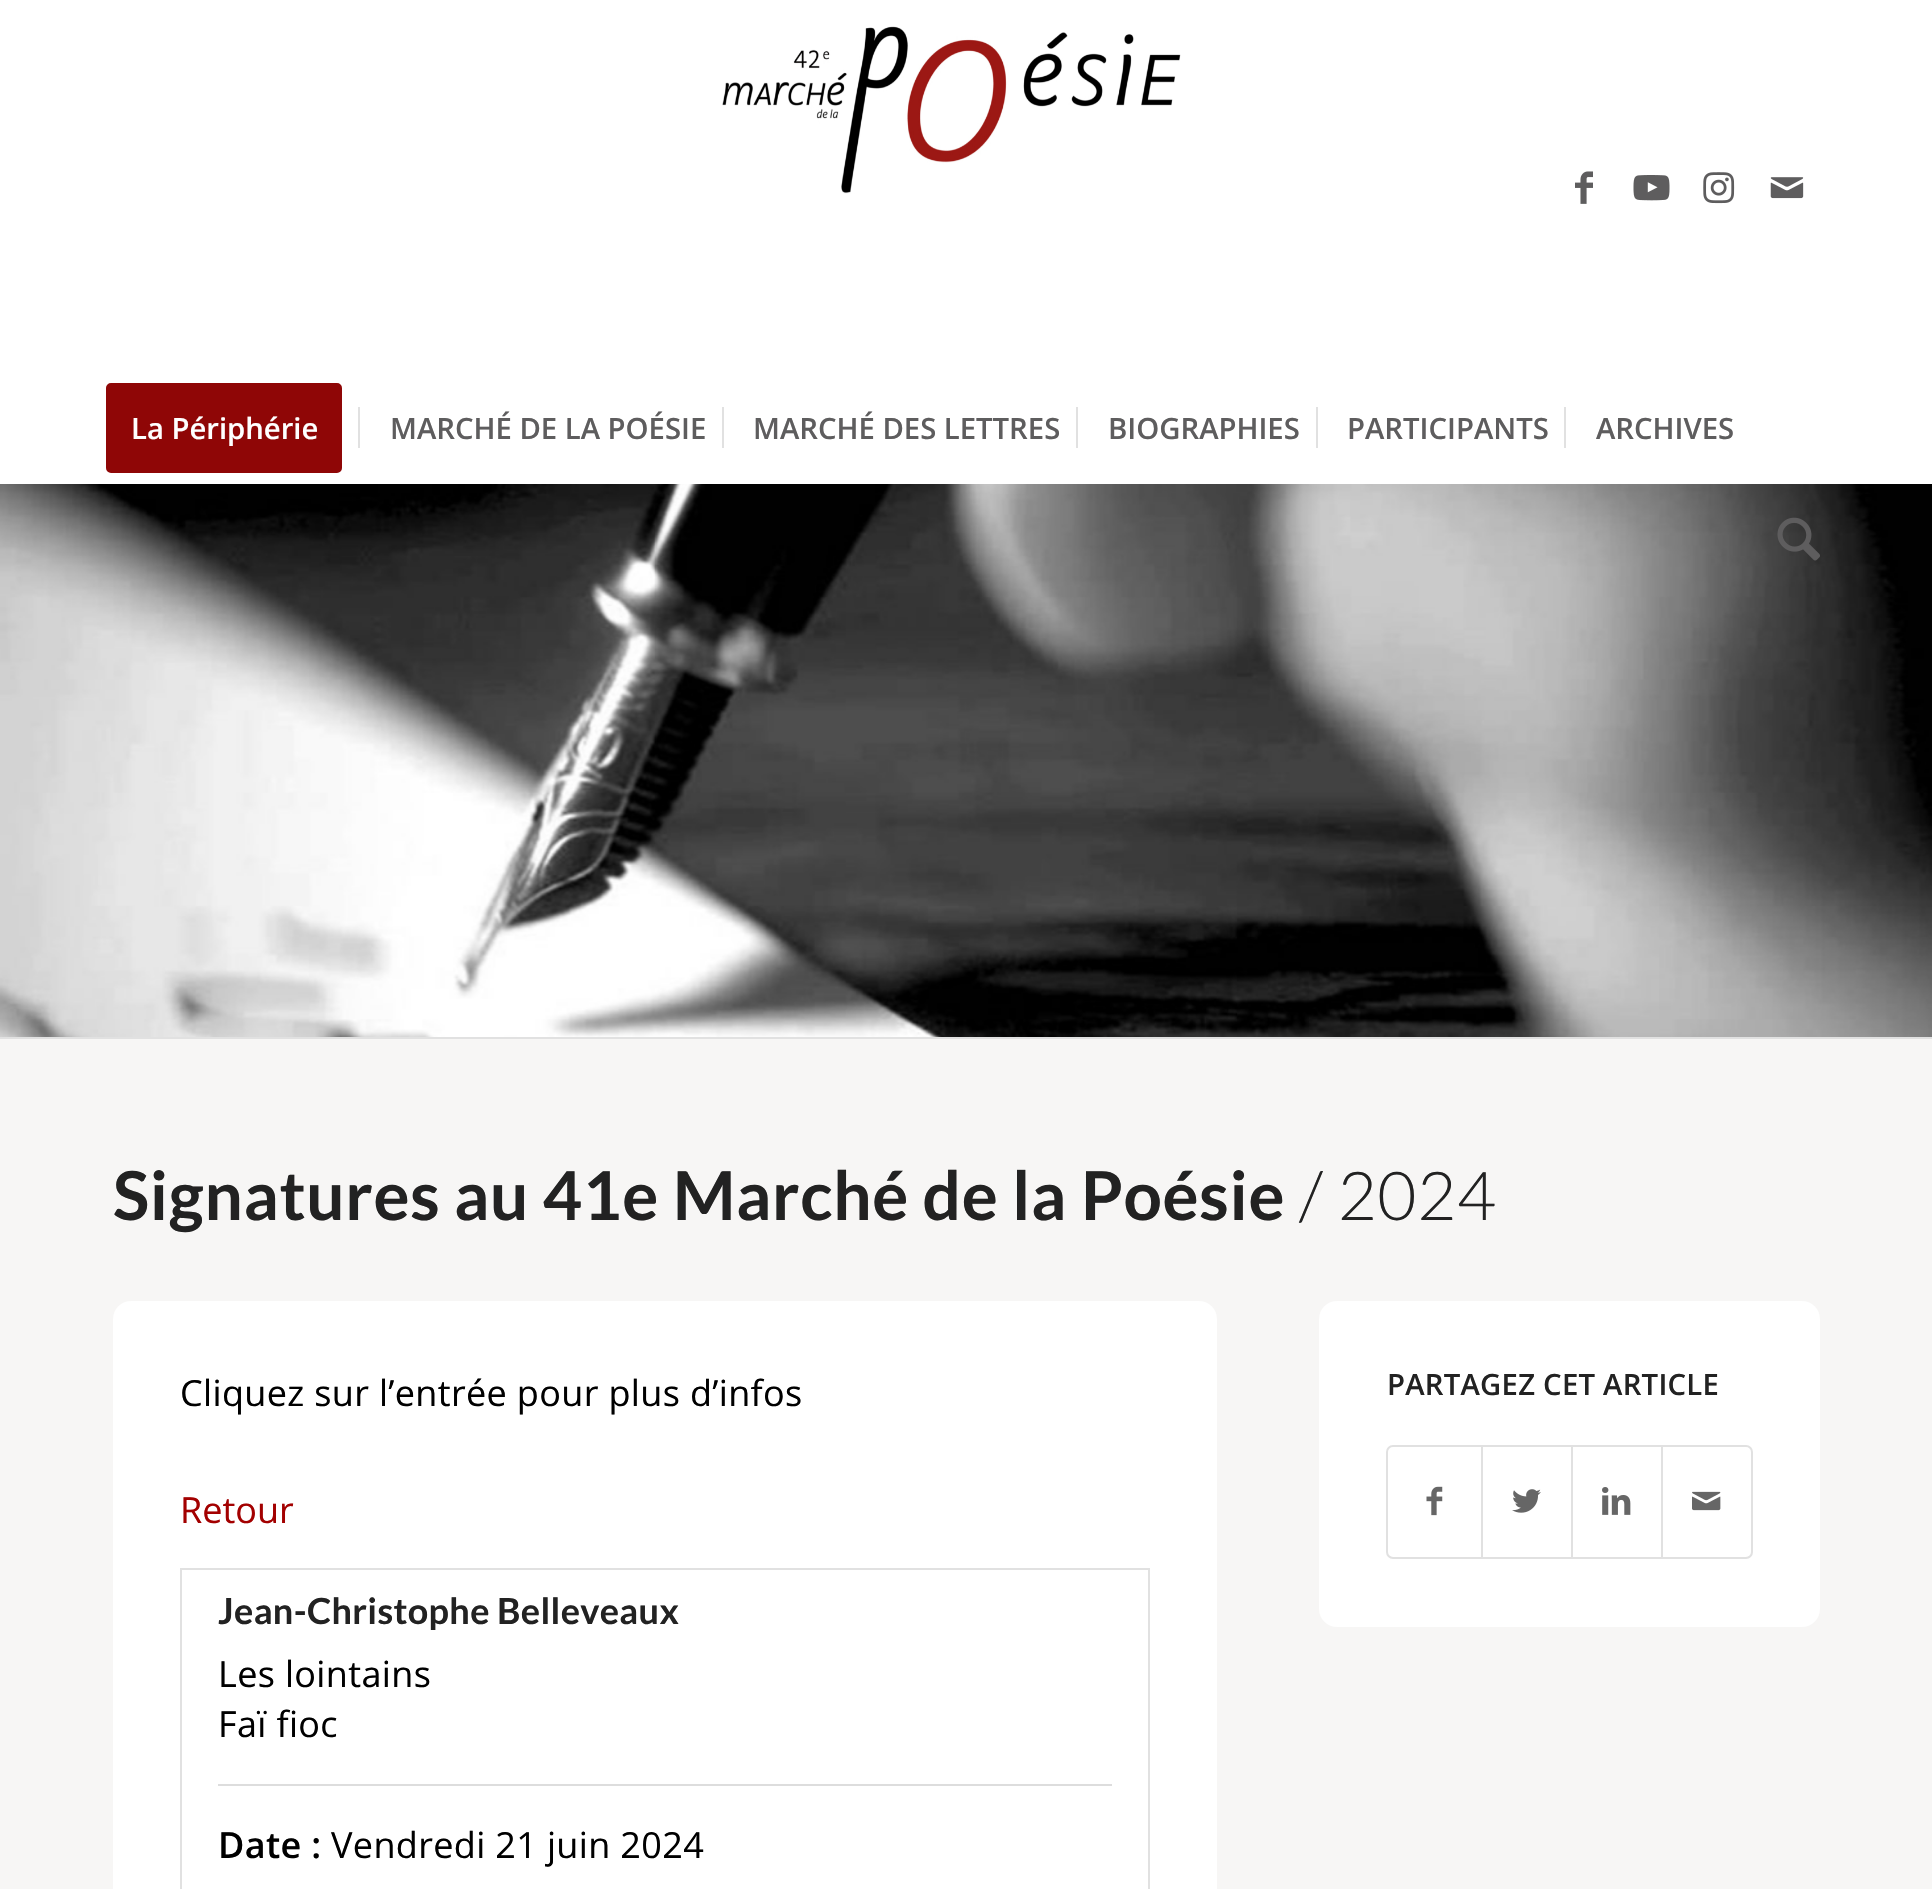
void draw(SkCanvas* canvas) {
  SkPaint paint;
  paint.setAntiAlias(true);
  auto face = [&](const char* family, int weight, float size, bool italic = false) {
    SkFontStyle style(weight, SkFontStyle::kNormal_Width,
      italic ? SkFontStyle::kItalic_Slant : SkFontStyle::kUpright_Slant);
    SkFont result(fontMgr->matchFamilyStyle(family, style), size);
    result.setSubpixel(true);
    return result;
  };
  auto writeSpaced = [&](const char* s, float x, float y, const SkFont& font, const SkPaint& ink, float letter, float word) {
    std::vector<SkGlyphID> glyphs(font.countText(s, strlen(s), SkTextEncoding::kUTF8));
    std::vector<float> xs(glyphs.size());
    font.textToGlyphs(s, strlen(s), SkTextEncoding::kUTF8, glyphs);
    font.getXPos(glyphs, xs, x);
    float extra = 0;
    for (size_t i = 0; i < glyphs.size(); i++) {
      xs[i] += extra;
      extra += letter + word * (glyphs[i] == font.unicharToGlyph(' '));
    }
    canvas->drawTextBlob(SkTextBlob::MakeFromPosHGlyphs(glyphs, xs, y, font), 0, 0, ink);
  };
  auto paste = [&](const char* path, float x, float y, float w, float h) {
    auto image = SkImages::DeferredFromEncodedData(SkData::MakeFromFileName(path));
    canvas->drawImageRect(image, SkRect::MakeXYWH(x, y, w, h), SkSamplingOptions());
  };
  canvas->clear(0xffffffff);
  paste("img/1.png", 722, 26, 459, 168);
  paste("img/2.png", 1575, 171, 18, 33);
  paste("img/3.png", 1633, 175, 37, 26);
  paste("img/4.png", 1703, 172, 32, 32);
  paste("img/5.png", 1770, 177, 34, 22);
  paint.setColor(0xff8f0606);
  canvas->drawRoundRect(SkRect::MakeXYWH(108.5f, 385.5f, 231, 85), 2.5f, 2.5f, paint);
  paint.setStroke(true);
  paint.setStrokeWidth(5);
  canvas->drawRoundRect(SkRect::MakeXYWH(108.5f, 385.5f, 231, 85), 2.5f, 2.5f, paint);
  paint.setStroke(false);
  {
    const struct { float x, y, w, h; SkColor color; } items[] = {
      {358, 407, 2, 41, 0xffe1e1e1},
      {722, 407, 2, 41, 0xffe1e1e1},
      {1076, 407, 2, 41, 0xffe1e1e1},
      {1316, 407, 2, 41, 0xffe1e1e1},
      {1564, 407, 2, 41, 0xffe1e1e1},
    };
    for (auto [x, y, w, h, color] : items) {
      paint.setColor(color);
      canvas->drawRect(SkRect::MakeXYWH(x, y, w, h), paint);
    }
  }
  paste("img/7.png", 0, 484, 1932, 553);
  paste("img/6.png", 1777, 517, 43, 44);
  paint.setColor(0xfff7f6f5);
  canvas->drawRect(SkRect::MakeXYWH(0, 1039, 1932, 850), paint);
  paint.setColor(0xffe1e1e1);
  canvas->drawRect(SkRect::MakeXYWH(0, 1037, 1932, 2), paint);
  paint.setColor(0xffffffff);
  canvas->drawRoundRect(SkRect::MakeXYWH(113, 1301, 1104, 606), 18, 18, paint);
  paint.setStroke(true);
  paint.setStrokeWidth(2);
  paint.setColor(0xffe1e1e1);
  canvas->drawRect(SkRect::MakeXYWH(181, 1569, 968, 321), paint);
  paint.setStroke(false);
  paint.setColor(0xffdddddd);
  canvas->drawRect(SkRect::MakeXYWH(218, 1784, 894, 2), paint);
  paint.setColor(0xffffffff);
  canvas->drawRoundRect(SkRect::MakeXYWH(1319, 1301, 501, 326), 18, 18, paint);
  paint.setStroke(true);
  paint.setColor(0xffe1e1e1);
  canvas->drawRoundRect(SkRect::MakeXYWH(1387, 1446, 365, 112), 6, 6, paint);
  paste("img/8.png", 1426, 1486, 17, 30);
  paint.setStroke(false);
  canvas->drawRect(SkRect::MakeXYWH(1481, 1447, 2, 110), paint);
  paste("img/9.png", 1512, 1489, 29, 24);
  canvas->drawRect(SkRect::MakeXYWH(1571, 1447, 2, 110), paint);
  paste("img/10.png", 1602, 1487, 29, 28);
  canvas->drawRect(SkRect::MakeXYWH(1661, 1447, 2, 110), paint);
  paste("img/11.png", 1692, 1491, 29, 20);
  auto f0 = face("Open Sans", 600, 29.25f);
  paint.setColor(0xffffffff);
  canvas->drawString("La Périphérie", 131, 439, f0, paint);
  paint.setColor(0xff5e5d5e);
  {
    const struct { const char* s; float x, y; } items[] = {
      {"MARCHÉ DE LA POÉSIE", 390, 439},
      {"MARCHÉ DES LETTRES", 753, 439},
      {"BIOGRAPHIES", 1108, 439},
      {"PARTICIPANTS", 1347, 439},
      {"ARCHIVES", 1596, 439},
    };
    for (auto [s, x, y] : items) {
      canvas->drawString(s, x, y, f0, paint);
    }
  }
  auto f1 = face("Lato", 700, 67.5f);
  paint.setColor(0xff222222);
  writeSpaced("Signatures au 41e Marché de la Poésie", 113, 1220, f1, paint, 0.65f, 0);
  auto f2 = face("Lato", 300, 67.5f);
  writeSpaced("/ 2024", 1299, 1220, f2, paint, 0.65f, 0);
  auto f3 = face("Open Sans", 400, 36);
  paint.setColor(0xff000000);
  writeSpaced("Cliquez sur l’entrée pour plus d’infos", 180, 1406, f3, paint, 0.35f, 0);
  paint.setColor(0xffa30000);
  canvas->drawString("Retour", 180, 1523, f3, paint);
  auto f4 = face("Lato", 700, 36);
  paint.setColor(0xff222222);
  writeSpaced("Jean-Christophe Belleveaux", 218, 1624, f4, paint, 0.35f, 0);
  paint.setColor(0xff000000);
  writeSpaced("Les lointains", 218, 1687, f3, paint, 0.35f, 0);
  writeSpaced("Faï fioc", 218, 1737, f3, paint, 0.35f, 0);
  auto f5 = face("Open Sans", 600, 36);
  writeSpaced("Date :", 218, 1858, f5, paint, 0.35f, 0);
  writeSpaced("Vendredi 21 juin 2024", 331, 1858, f3, paint, 0.35f, 0);
  paint.setColor(0xff222222);
  writeSpaced("PARTAGEZ CET ARTICLE", 1387, 1395, f0, paint, 0.25f, 0);
}
